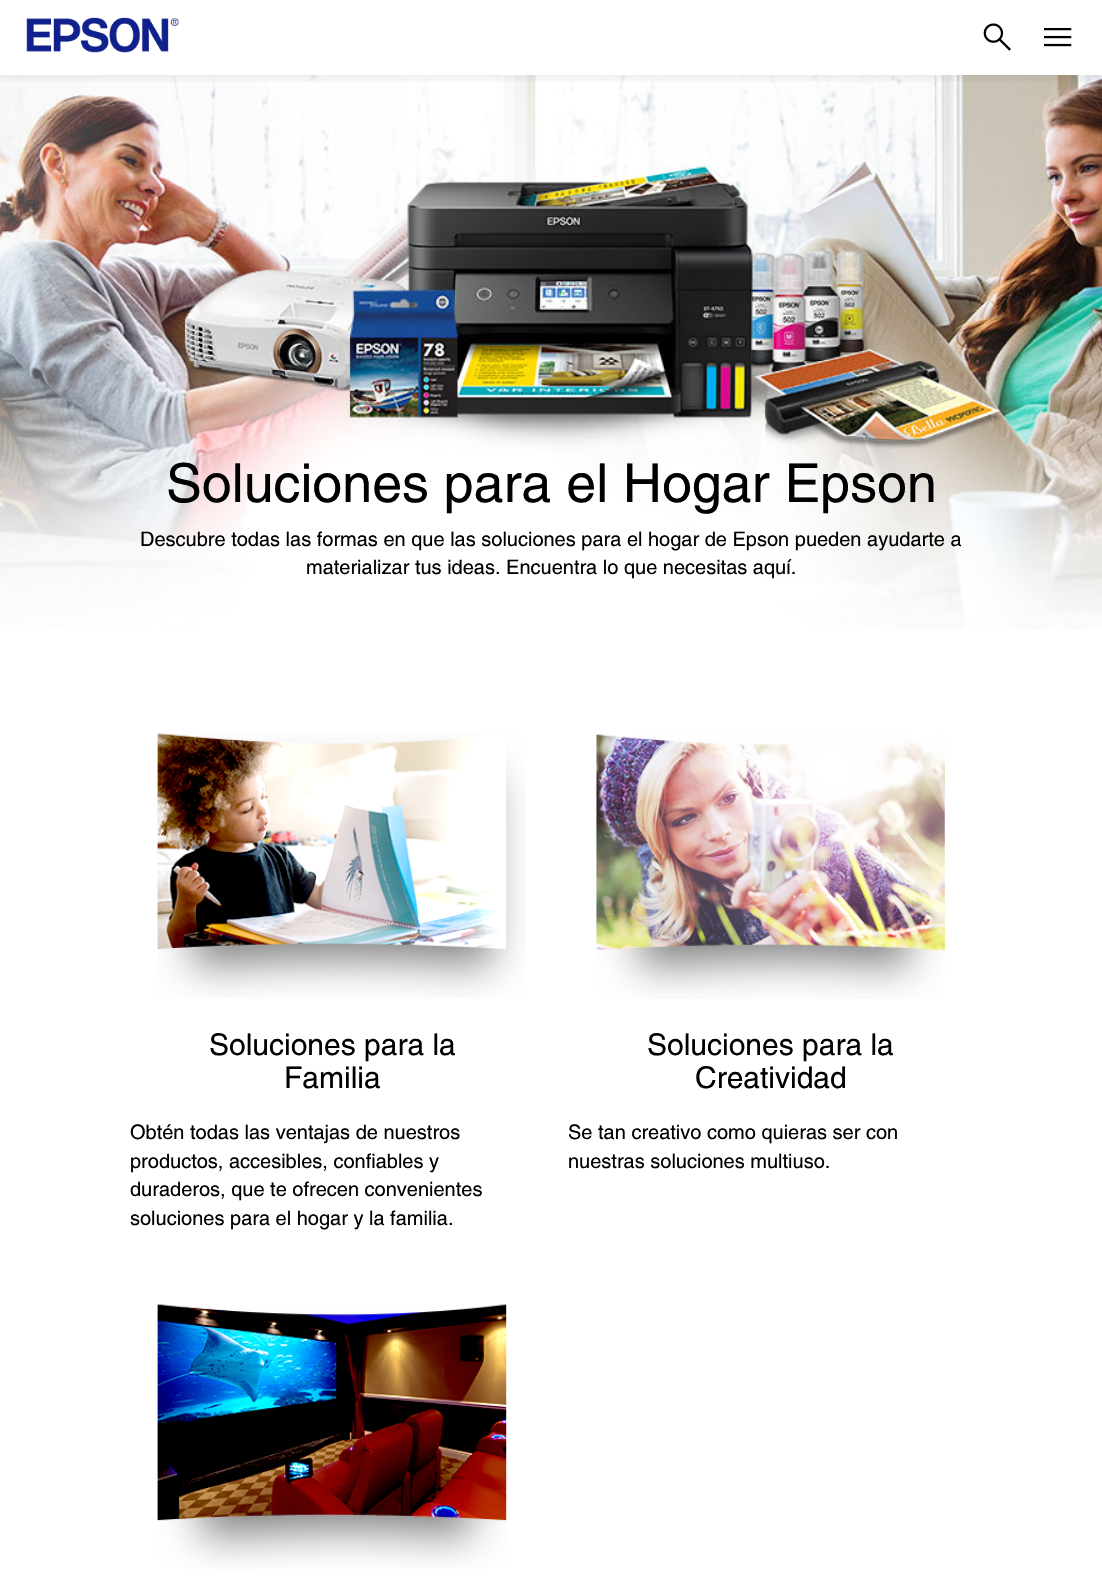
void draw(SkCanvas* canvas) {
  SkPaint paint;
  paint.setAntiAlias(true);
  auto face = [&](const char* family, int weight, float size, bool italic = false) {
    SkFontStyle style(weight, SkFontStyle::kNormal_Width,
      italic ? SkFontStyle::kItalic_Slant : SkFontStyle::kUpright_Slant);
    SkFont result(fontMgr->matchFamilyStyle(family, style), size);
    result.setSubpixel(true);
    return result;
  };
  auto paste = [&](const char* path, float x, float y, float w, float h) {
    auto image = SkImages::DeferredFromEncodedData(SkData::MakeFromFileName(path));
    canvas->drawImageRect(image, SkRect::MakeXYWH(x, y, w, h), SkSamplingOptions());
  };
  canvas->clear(0xffffffff);
  paste("img/4.png", 0, 75, 1102, 555);
  canvas->save();
  canvas->clipRect(SkRect::MakeXYWH(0, 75, 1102, 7));
  paint.setColor(0x14000000);
  paint.setMaskFilter(SkMaskFilter::MakeBlur(kNormal_SkBlurStyle, 6));
  canvas->drawRect(SkRect::MakeXYWH(0, 3, 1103, 75), paint);
  paint.setMaskFilter(nullptr);
  canvas->restore();
  paste("img/1.png", 26, 17, 153, 36);
  paste("img/2.png", 983, 23, 28, 28);
  paste("img/3.png", 1044, 28, 28, 19);
  paste("img/5.png", 157, 733, 369, 265);
  paste("img/6.png", 596, 734, 349, 265);
  paste("img/7.png", 157, 1304, 350, 265);
  auto f0 = face("Helvetica", 400, 53.75f);
  paint.setColor(0xff000000);
  canvas->drawString("Soluciones para el Hogar Epson", 166, 502, f0, paint);
  auto f1 = face("Helvetica", 400, 20);
  canvas->drawString("Descubre todas las formas en que las soluciones para el hogar de Epson pueden ayudarte a", 140, 546, f1, paint);
  canvas->drawString("materializar tus ideas. Encuentra lo que necesitas aquí.", 306, 574, f1, paint);
  auto f2 = face("Helvetica", 400, 30);
  canvas->drawString("Soluciones para la", 209, 1055, f2, paint);
  canvas->drawString("Familia", 284, 1088, f2, paint);
  {
    const struct { const char* s; float x, y; } items[] = {
      {"Obtén todas las ventajas de nuestros", 130, 1139},
      {"productos, accesibles, confiables y", 130, 1168},
      {"duraderos, que te ofrecen convenientes", 130, 1196},
      {"soluciones para el hogar y la familia.", 130, 1225},
    };
    for (auto [s, x, y] : items) {
      canvas->drawString(s, x, y, f1, paint);
    }
  }
  canvas->drawString("Soluciones para la", 647, 1055, f2, paint);
  canvas->drawString("Creatividad", 695, 1088, f2, paint);
  canvas->drawString("Se tan creativo como quieras ser con", 568, 1139, f1, paint);
  canvas->drawString("nuestras soluciones multiuso.", 568, 1168, f1, paint);
}
